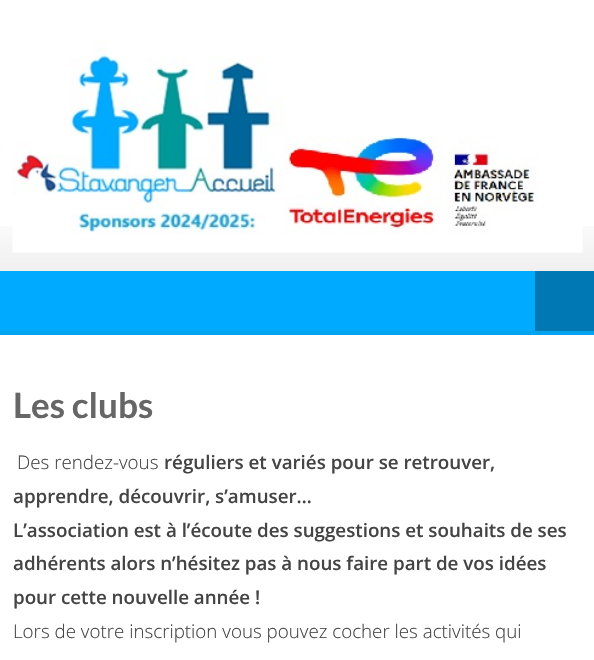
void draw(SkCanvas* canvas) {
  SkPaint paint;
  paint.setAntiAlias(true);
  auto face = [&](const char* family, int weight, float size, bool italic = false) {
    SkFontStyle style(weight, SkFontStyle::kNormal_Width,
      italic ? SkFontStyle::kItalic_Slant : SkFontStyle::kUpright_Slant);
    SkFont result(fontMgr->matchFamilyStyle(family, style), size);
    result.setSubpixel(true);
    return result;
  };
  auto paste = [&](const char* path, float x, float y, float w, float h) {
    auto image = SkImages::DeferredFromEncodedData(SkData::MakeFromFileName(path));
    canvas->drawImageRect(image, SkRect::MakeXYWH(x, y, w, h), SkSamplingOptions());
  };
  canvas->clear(0xffffffff);
  paste("img/1.png", 0, 226, 594, 45);
  paste("img/2.png", 12, 39, 571, 214);
  {
    const struct { float x, y, w, h; SkColor color; } items[] = {
      {0, 271, 535, 60, 0xff00abff},
      {0, 331, 594, 4, 0xff04a3ed},
      {535, 271, 59, 60, 0xff0078b3},
    };
    for (auto [x, y, w, h, color] : items) {
      paint.setColor(color);
      canvas->drawRect(SkRect::MakeXYWH(x, y, w, h), paint);
    }
  }
  auto f0 = face("Lato", 700, 35);
  paint.setColor(0xff666666);
  canvas->drawString("Les clubs", 13, 418, f0, paint);
  auto f1 = face("Open Sans", 300, 18.75f);
  paint.setColor(0xff444444);
  canvas->drawString("Des rendez-vous", 17, 469, f1, paint);
  auto f2 = face("Open Sans", 600, 18.75f);
  {
    const struct { const char* s; float x, y; } items[] = {
      {"réguliers et variés pour se retrouver,", 164, 469},
      {"apprendre, découvrir, s’amuser…", 13, 503},
      {"L’association est à l’écoute des suggestions et souhaits de ses", 13, 537},
      {"adhérents alors n’hésitez pas à nous faire part de vos idées", 13, 570},
      {"pour cette nouvelle année !", 13, 604},
    };
    for (auto [s, x, y] : items) {
      canvas->drawString(s, x, y, f2, paint);
    }
  }
  canvas->drawString("Lors de votre inscription vous pouvez cocher les activités qui", 13, 638, f1, paint);
}
